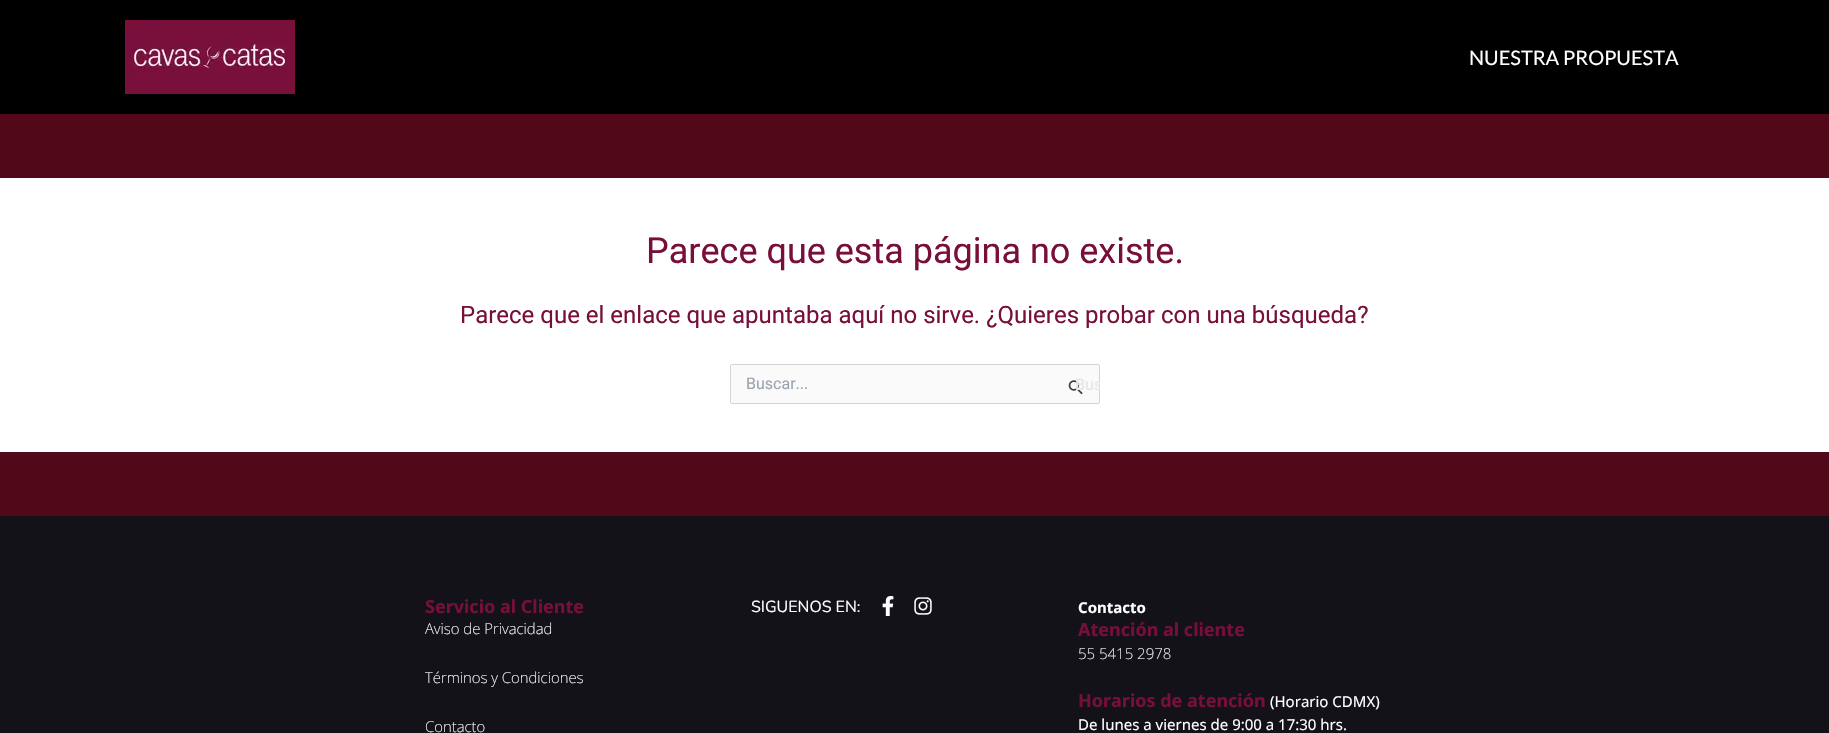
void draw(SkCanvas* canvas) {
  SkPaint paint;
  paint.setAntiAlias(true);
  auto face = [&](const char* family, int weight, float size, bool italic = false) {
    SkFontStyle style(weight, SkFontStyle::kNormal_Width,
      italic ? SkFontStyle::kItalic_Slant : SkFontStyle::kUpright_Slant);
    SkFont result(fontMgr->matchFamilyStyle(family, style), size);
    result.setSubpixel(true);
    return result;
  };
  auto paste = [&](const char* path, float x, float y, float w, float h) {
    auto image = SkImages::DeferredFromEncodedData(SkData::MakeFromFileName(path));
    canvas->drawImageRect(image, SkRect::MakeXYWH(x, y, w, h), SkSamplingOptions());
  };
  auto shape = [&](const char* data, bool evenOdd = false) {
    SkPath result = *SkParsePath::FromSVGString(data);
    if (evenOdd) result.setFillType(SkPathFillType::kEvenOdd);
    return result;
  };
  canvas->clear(0xff510919);
  paint.setColor(0xff000000);
  canvas->drawRect(SkRect::MakeXYWH(0, 0, 1829, 114), paint);
  paste("img/1.png", 125, 20, 170, 74);
  paint.setColor(0xffffffff);
  canvas->drawRect(SkRect::MakeXYWH(0, 178, 1829, 274), paint);
  paint.setColor(0xfffafafa);
  canvas->drawRoundRect(SkRect::MakeXYWH(730.5f, 364.5f, 369, 39), 1.5f, 1.5f, paint);
  paint.setStroke(true);
  paint.setStrokeWidth(1);
  paint.setColor(0xffd1d5db);
  canvas->drawRoundRect(SkRect::MakeXYWH(730.5f, 364.5f, 369, 39), 1.5f, 1.5f, paint);
  paste("img/2.png", 1068, 380, 15, 15);
  paint.setStroke(false);
  paint.setColor(0xff131218);
  canvas->drawRect(SkRect::MakeXYWH(0, 516, 1829, 217), paint);
  paste("img/3.png", 882, 596, 12, 20);
  paste("img/4.png", 914, 597, 18, 18);
  auto f0 = face("Lato", 400, 20);
  paint.setColor(0xffffffff);
  canvas->drawString("NUESTRA PROPUESTA", 1469, 65, f0, paint);
  auto f1 = face("Roboto", 400, 36);
  paint.setColor(0xff780f3a);
  canvas->drawString("Parece que esta página no existe.", 646, 263, f1, paint);
  auto f2 = face("Roboto", 400, 24);
  canvas->drawString("Parece que el enlace que apuntaba aquí no sirve. ¿Quieres probar con una búsqueda?", 460, 323, f2, paint);
  auto f3 = face("Roboto", 400, 16);
  paint.setColor(0xff9ca3af);
  canvas->drawString("Buscar...", 746, 389, f3, paint);
  canvas->save();
  canvas->clipPath(shape("M1057 364H1098C1099 364 1100 365 1100 366V404C1100 405 1099 406 1098 406H1057C1056 406 1055 405 1055 404V366C1055 365 1056 364 1057 364Z"), true);
  auto f4 = face("Roboto", 500, 16);
  paint.setColor(0xffe7e8e8);
  canvas->drawString("Bus", 1075, 390, f4, paint);
  canvas->restore();
  auto f5 = face("Noto Sans", 700, 18);
  paint.setColor(0xff780f3a);
  canvas->drawString("Servicio al Cliente", 425, 613, f5, paint);
  auto f6 = face("Noto Sans", 200, 15);
  paint.setColor(0xffffffff);
  {
    const struct { const char* s; float x, y; } items[] = {
      {"Aviso de Privacidad", 425, 634},
      {"Términos y Condiciones", 425, 683},
      {"Contacto", 425, 732},
    };
    for (auto [s, x, y] : items) {
      canvas->drawString(s, x, y, f6, paint);
    }
  }
  auto f7 = face("Nunito", 400, 16);
  canvas->drawString("SIGUENOS EN:", 751, 612, f7, paint);
  auto f8 = face("Noto Sans", 700, 15);
  canvas->drawString("Contacto", 1078, 613, f8, paint);
  paint.setColor(0xff780f3a);
  canvas->drawString("Atención al cliente", 1078, 636, f5, paint);
  paint.setColor(0xffffffff);
  canvas->drawString("55 5415 2978", 1078, 659, f6, paint);
  paint.setColor(0xff780f3a);
  canvas->drawString("Horarios de atención", 1078, 707, f5, paint);
  auto f9 = face("Noto Sans", 400, 15);
  paint.setColor(0xffffffff);
  canvas->drawString("(Horario CDMX)", 1270, 707, f9, paint);
  canvas->drawString("De lunes a viernes de 9:00 a 17:30 hrs.", 1078, 730, f9, paint);
}
